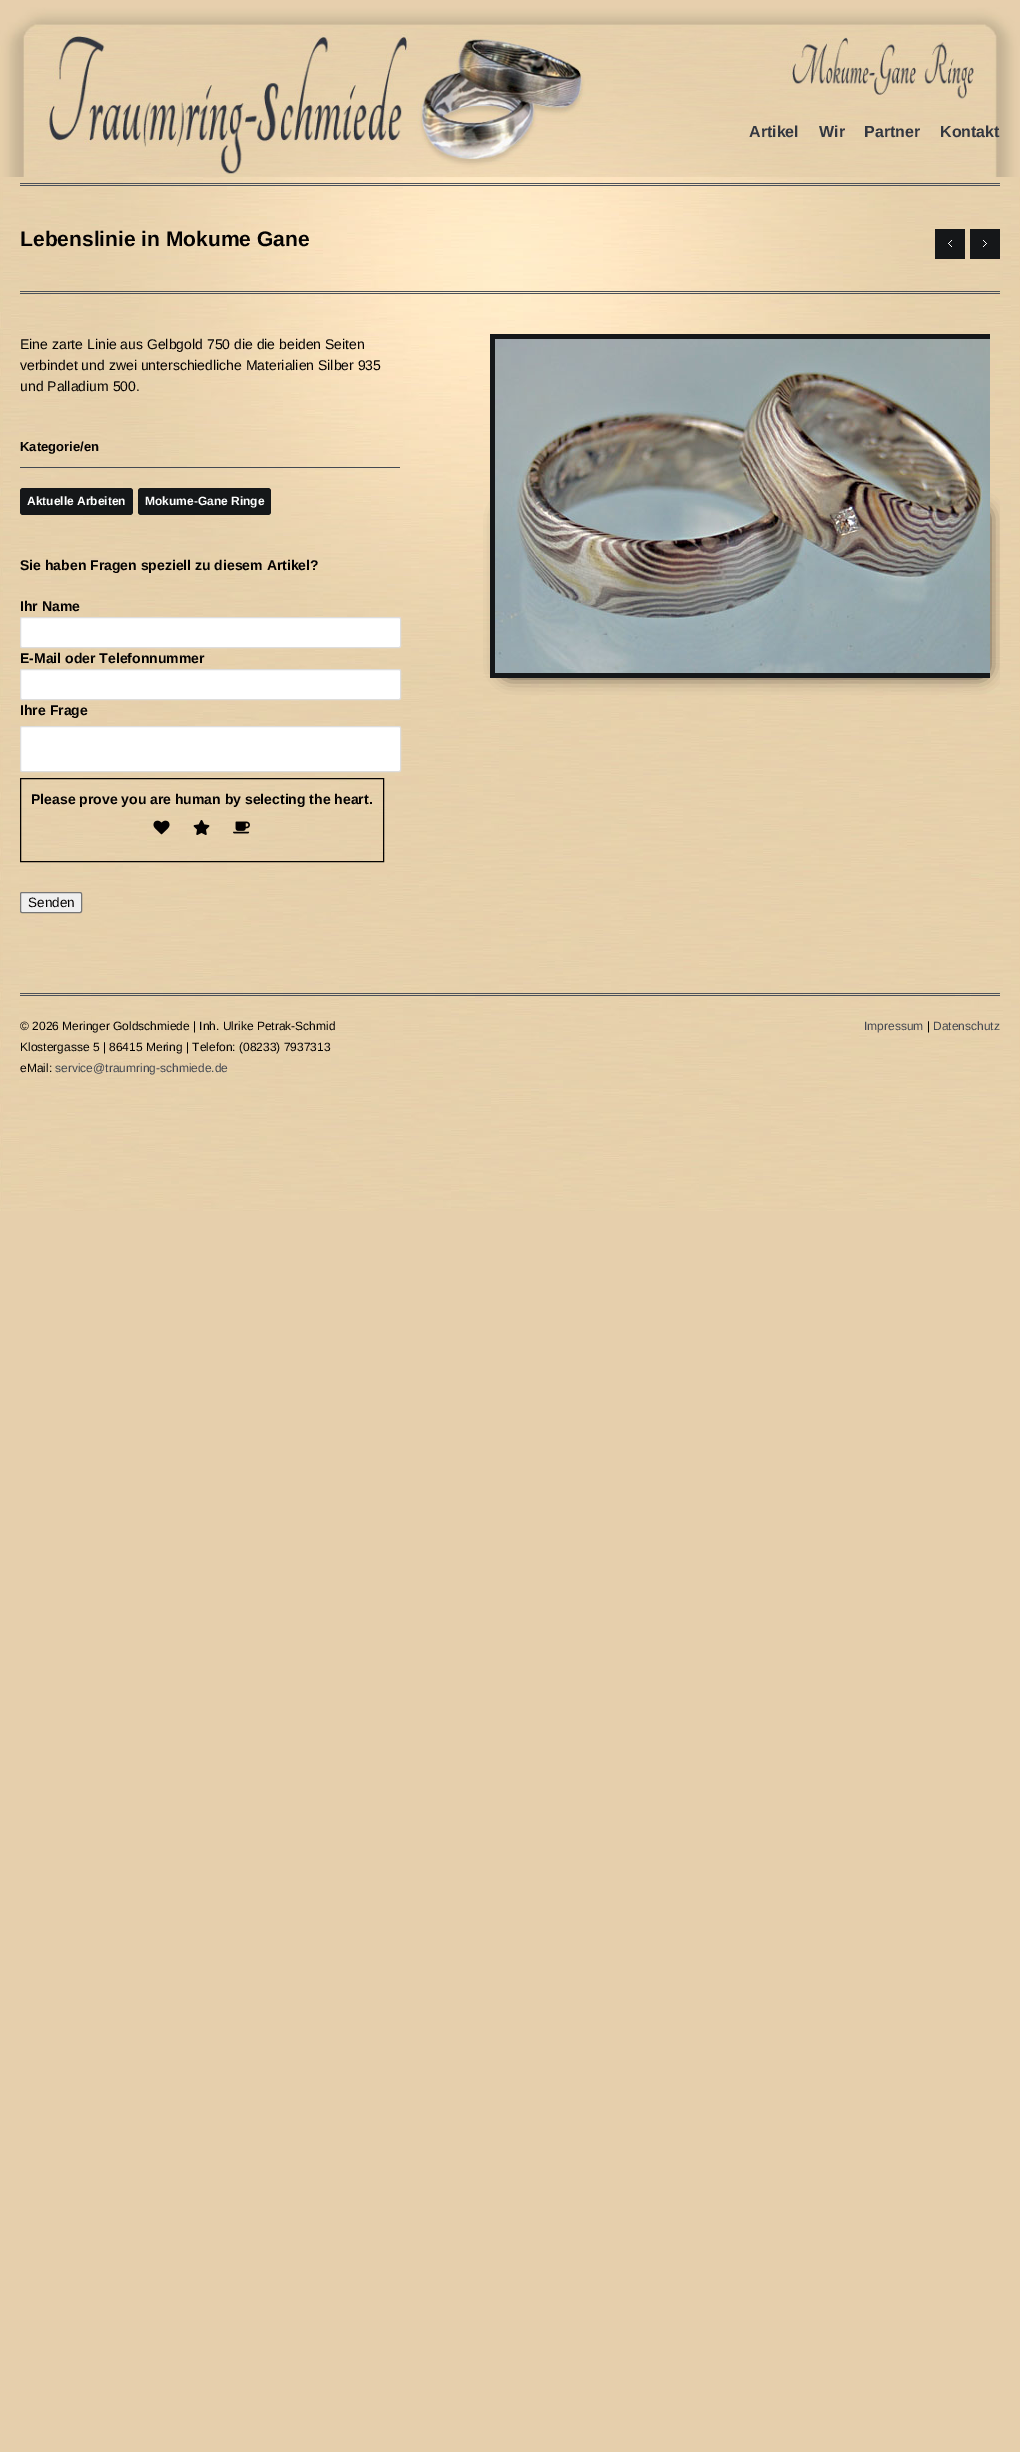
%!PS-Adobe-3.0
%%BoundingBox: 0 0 1020 2452
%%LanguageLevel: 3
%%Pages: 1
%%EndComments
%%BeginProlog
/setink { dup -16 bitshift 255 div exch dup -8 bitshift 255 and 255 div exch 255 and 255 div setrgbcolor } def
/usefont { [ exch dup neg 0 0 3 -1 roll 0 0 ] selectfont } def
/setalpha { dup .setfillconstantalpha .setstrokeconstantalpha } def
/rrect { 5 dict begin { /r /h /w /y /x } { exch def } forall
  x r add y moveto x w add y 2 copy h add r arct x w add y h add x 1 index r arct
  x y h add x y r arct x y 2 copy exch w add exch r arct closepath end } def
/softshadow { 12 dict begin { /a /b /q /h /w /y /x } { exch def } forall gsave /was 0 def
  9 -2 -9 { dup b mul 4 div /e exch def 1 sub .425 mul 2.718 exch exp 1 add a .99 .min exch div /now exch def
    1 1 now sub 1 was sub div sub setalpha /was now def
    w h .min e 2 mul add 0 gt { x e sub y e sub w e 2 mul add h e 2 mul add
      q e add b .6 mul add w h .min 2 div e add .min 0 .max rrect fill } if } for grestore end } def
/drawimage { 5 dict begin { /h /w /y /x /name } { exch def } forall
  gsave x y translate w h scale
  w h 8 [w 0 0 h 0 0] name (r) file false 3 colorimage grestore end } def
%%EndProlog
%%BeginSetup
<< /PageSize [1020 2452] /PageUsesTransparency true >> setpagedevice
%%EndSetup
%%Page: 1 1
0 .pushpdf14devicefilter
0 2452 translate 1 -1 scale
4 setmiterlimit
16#E6CFAC setink
0 0 1020 2452 rectfill
(img1.raw) 0 177 1020 1034 drawimage
(img2.raw) 0 0 1020 177 drawimage
16#4B515A setink
20 183 980 1 rectfill
20 185 980 1 rectfill
/LiberationSans-Bold 16 usefont
16#333740 setink
[
    [(Artikel) 749 137]
    [(Wir) 819 137]
    [(Partner) 864 137]
    [(Kontakt) 940 137]
] { aload pop moveto show } forall
16#4B515A setink
20 291 980 1 rectfill
20 293 980 1 rectfill
/LiberationSans-Bold 21 usefont
16#030101 setink
20 246 moveto (Lebenslinie in Mokume Gane) show
16#151719 setink
935 229 30 30 rectfill
(img3.raw) 948 240 4 7 drawimage
970 229 30 30 rectfill
(img4.raw) 983 240 4 7 drawimage
/LiberationSans-Regular 14 usefont
16#030101 setink
[
    [(Eine zarte Linie aus Gelbgold 750 die die beiden Seiten) 20 349]
    [(verbindet und zwei unterschiedliche Materialien Silber 935) 20 370]
    [(und Palladium 500.) 20 391]
] { aload pop moveto show } forall
16#434951 setink
20 467 380 1 rectfill
/LiberationSans-Bold 13 usefont
16#030101 setink
20 451 moveto (Kategorie/en) show
16#151719 setink
20 488 113 27 3 rrect fill
/LiberationSans-Bold 12 usefont
16#FFFFFF setink
27 505 moveto (Aktuelle Arbeiten) show
16#151719 setink
138 488 133 27 3 rrect fill
16#FFFFFF setink
145 505 moveto (Mokume-Gane Ringe) show
/LiberationSans-Bold 14 usefont
16#030101 setink
20 570 moveto (Sie haben Fragen speziell zu diesem Artikel?) show
20 611 moveto (Ihr Name) show
16#FFFFFF setink
20.5 617.5 380 30 1.5 rrect gsave fill grestore
16#DDDDDD setink
stroke
16#030101 setink
20 663 moveto (E-Mail oder Telefonnummer) show
16#FFFFFF setink
20.5 669.5 380 30 1.5 rrect gsave fill grestore
16#DDDDDD setink
stroke
16#030101 setink
20 715 moveto (Ihre Frage) show
16#FFFFFF setink
20.5 726.5 380 45 1.5 rrect gsave fill grestore
16#DDDDDD setink
stroke
16#030101 setink
20.5 778.5 363 83 rectstroke
31 804 moveto (Please prove you are human by selecting the heart.) show
(img5.raw) 153 820 17 15 drawimage
(img6.raw) 193 820 17 15 drawimage
(img7.raw) 233 821 17 13 drawimage
16#EFEFEF setink
20.5 892.5 61 20 1.5 rrect gsave fill grestore
16#767676 setink
stroke
/LiberationSans-Regular 13.5 usefont
16#030101 setink
28 907 moveto (Senden) show
gsave
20 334 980 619 rectclip
16#000000 setink
500 506 490 172 10 7.5 0.6 softshadow
grestore
16#151719 setink
490 334 500 344 rectfill
(img8.raw) 495 339 495 334 drawimage
16#4B515A setink
20 993 980 1 rectfill
20 995 980 1 rectfill
/LiberationSans-Regular 12 usefont
16#030101 setink
[
    [(© 2026 Meringer Goldschmiede | Inh. Ulrike Petrak-Schmid) 20 1030]
    [(Klostergasse 5 | 86415 Mering | Telefon: \(08233\) 7937313) 20 1051]
    [(eMail:) 20 1072]
] { aload pop moveto show } forall
16#434750 setink
55 1072 moveto (service@traumring-schmiede.de) show
864 1030 moveto (Impressum) show
16#030101 setink
927 1030 moveto (|) show
16#434750 setink
933 1030 moveto (Datenschutz) show
.poppdf14devicefilter showpage
%%EOF
